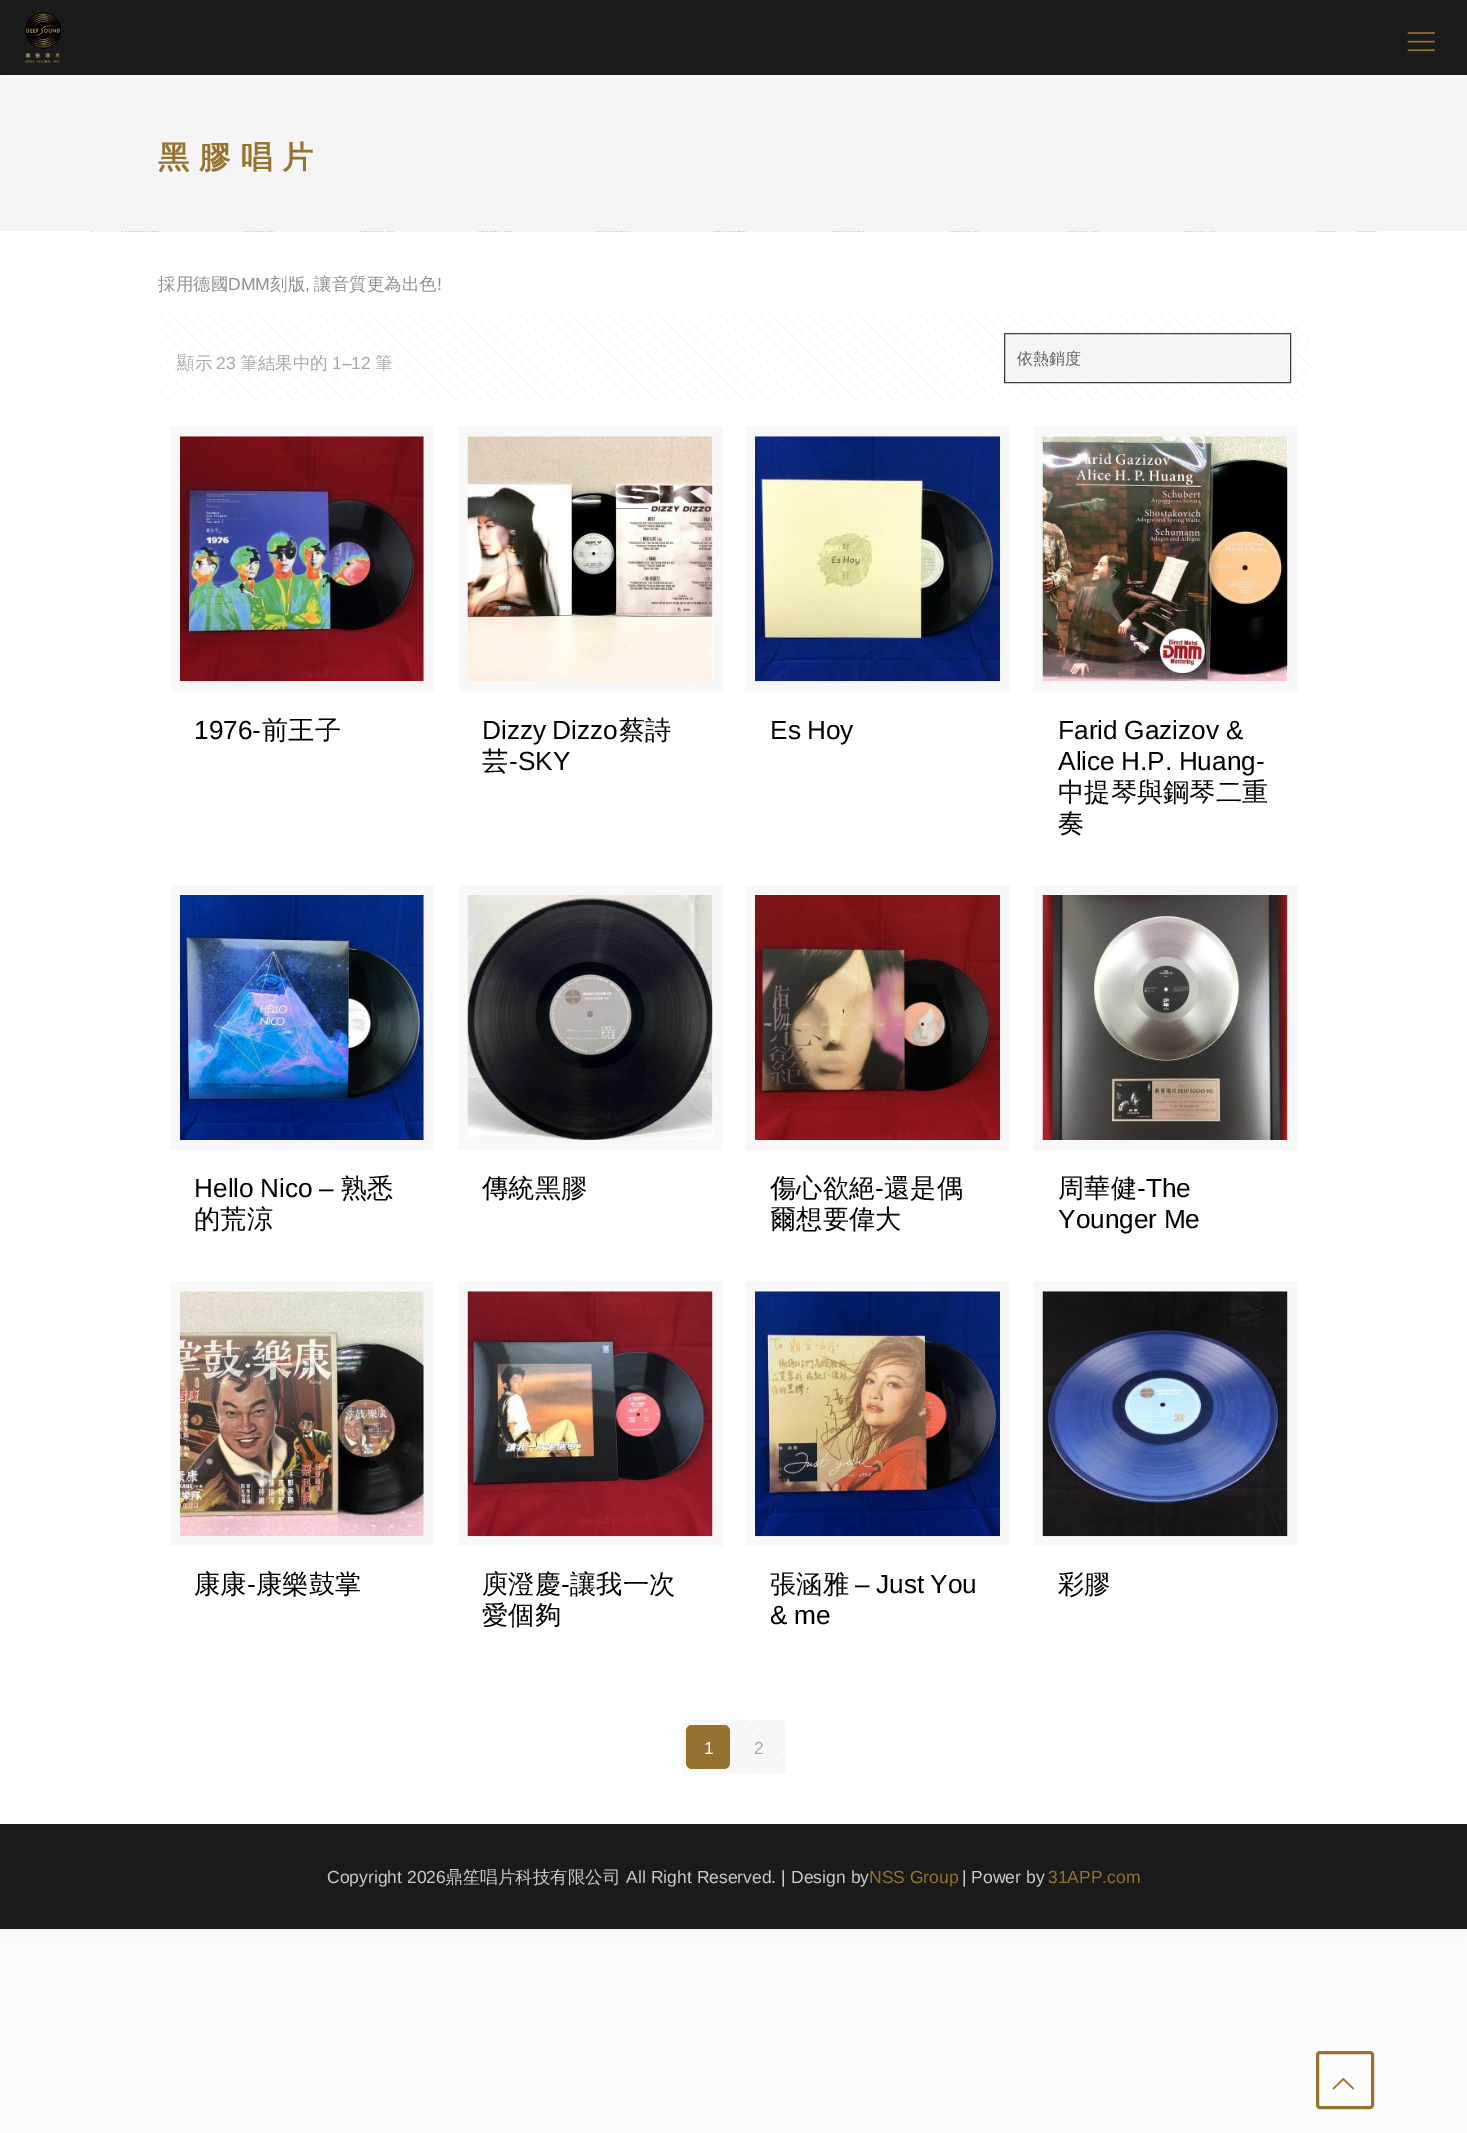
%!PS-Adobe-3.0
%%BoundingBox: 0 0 1467 2133
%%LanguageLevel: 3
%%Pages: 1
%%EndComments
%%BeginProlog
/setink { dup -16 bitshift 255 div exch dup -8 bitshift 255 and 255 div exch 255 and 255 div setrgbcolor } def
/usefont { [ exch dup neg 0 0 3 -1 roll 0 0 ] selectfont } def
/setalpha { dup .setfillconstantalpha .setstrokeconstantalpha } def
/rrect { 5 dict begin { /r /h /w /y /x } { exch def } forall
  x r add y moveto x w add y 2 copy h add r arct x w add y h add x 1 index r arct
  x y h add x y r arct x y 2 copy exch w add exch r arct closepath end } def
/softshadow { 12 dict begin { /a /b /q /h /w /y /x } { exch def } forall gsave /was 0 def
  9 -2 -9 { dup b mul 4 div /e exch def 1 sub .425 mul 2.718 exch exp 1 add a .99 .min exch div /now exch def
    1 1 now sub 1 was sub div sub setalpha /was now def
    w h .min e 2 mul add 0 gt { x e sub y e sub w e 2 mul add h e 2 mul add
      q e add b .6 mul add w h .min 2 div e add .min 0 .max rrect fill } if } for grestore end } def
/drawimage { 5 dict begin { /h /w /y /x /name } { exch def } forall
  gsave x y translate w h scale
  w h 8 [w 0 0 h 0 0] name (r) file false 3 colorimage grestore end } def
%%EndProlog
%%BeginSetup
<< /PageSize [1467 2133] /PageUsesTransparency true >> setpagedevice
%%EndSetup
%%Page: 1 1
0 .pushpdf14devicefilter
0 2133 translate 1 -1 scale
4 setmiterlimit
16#FCFCFC setink
0 0 1467 2133 rectfill
16#000000 setink
0 0 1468 1929 0 9.5 0.06 softshadow
16#1A1A1A setink
0 0 1467 75 rectfill
(img1.raw) 25 12 36 51 drawimage
(img2.raw) 1407 32 28 20 drawimage
16#FFFFFF setink
0 231 1467 1593 rectfill
(img3.raw) 90 231 1288 1 drawimage
16#F5F5F5 setink
3 75 1462 156 rectfill
/WenQuanYiZenHei-Bold 31.25 usefont
16#957230 setink
158 168 moveto 10 0 (黑膠唱片) ashow
/WenQuanYiZenHei-Medium 17.5 usefont
16#8D8F92 setink
158 290 moveto (採用德國) show
/LiberationSans-Regular 17.5 usefont
228 290 moveto (DMM) show
/WenQuanYiZenHei-Medium 17.5 usefont
270 290 moveto (刻版) show
314 290 moveto (讓音質更為出色) show
/LiberationSans-Regular 17.5 usefont
437 290 moveto (!) show
305 290 moveto (,) show
(img4.raw) 158 314 1152 87 drawimage
/WenQuanYiZenHei-Medium 17.5 usefont
16#A8A8A8 setink
177 369 moveto (顯示) show
/LiberationSans-Regular 17.5 usefont
216 369 moveto (23) show
/WenQuanYiZenHei-Medium 17.5 usefont
240 369 moveto (筆結果中的) show
/LiberationSans-Regular 17.5 usefont
332 369 moveto (1–12) show
/WenQuanYiZenHei-Medium 17.5 usefont
375 369 moveto (筆) show
16#F5F5F5 setink
1004.5 333.5 moveto 1290.5 333.5 lineto 1290.5 382.5 lineto 1004.5 382.5 lineto closepath gsave fill grestore
16#3E3E3E setink
stroke
/WenQuanYiZenHei-Medium 16 usefont
16#626262 setink
1017 364 moveto (依熱銷度) show
16#F8F8F8 setink
10 setlinewidth
175 431 254 255 rectstroke
(img5.raw) 180 436 244 246 drawimage
/LiberationSans-Regular 26.25 usefont
16#000000 setink
194 739 moveto (1976-) show
/WenQuanYiZenHei-Medium 26.25 usefont
262 739 moveto (前王子) show
16#F8F8F8 setink
463 431 255 255 rectstroke
(img6.raw) 467 436 246 245 drawimage
/LiberationSans-Regular 26.25 usefont
16#000000 setink
482 739 moveto -1 0 32 (Dizzy Dizzo) widthshow
/WenQuanYiZenHei-Medium 26.25 usefont
619 739 moveto (蔡詩) show
482 770 moveto (芸) show
/LiberationSans-Regular 26.25 usefont
509 770 moveto (-SKY) show
16#F8F8F8 setink
750 431 255 255 rectstroke
(img7.raw) 755 436 245 246 drawimage
16#000000 setink
770 739 moveto -1 0 32 (Es Hoy) widthshow
16#F8F8F8 setink
1038 431 255 255 rectstroke
(img8.raw) 1042 436 246 246 drawimage
16#000000 setink
1058 739 moveto -1 0 32 (Farid Gazizov) widthshow
1226 739 moveto (&) show
1058 770 moveto -1 0 32 (Alice H.P. Huang-) widthshow
/WenQuanYiZenHei-Medium 26.25 usefont
1058 801 moveto (中提琴與鋼琴二重) show
1058 832 moveto (奏) show
16#F8F8F8 setink
175 890 254 255 rectstroke
(img9.raw) 180 895 244 245 drawimage
/LiberationSans-Regular 26.25 usefont
16#000000 setink
194 1197 moveto -1 0 32 (Hello Nico –) widthshow
/WenQuanYiZenHei-Medium 26.25 usefont
341 1197 moveto (熟悉) show
194 1228 moveto (的荒涼) show
16#F8F8F8 setink
463 890 255 255 rectstroke
(img10.raw) 467 895 246 245 drawimage
16#000000 setink
482 1197 moveto (傳統黑膠) show
16#F8F8F8 setink
750 890 255 255 rectstroke
(img11.raw) 755 895 245 245 drawimage
16#000000 setink
770 1197 moveto (傷心欲絕) show
/LiberationSans-Regular 26.25 usefont
875 1197 moveto (-) show
/WenQuanYiZenHei-Medium 26.25 usefont
884 1197 moveto (還是偶) show
770 1228 moveto (爾想要偉大) show
16#F8F8F8 setink
1038 890 255 255 rectstroke
(img12.raw) 1042 895 246 245 drawimage
16#000000 setink
1058 1197 moveto (周華健) show
/LiberationSans-Regular 26.25 usefont
1137 1197 moveto (-The) show
1058 1228 moveto -1 0 32 (Younger Me) widthshow
16#F8F8F8 setink
175 1286 254 255 rectstroke
(img13.raw) 180 1291 244 245 drawimage
/WenQuanYiZenHei-Medium 26.25 usefont
16#000000 setink
194 1593 moveto (康康) show
/LiberationSans-Regular 26.25 usefont
247 1593 moveto (-) show
/WenQuanYiZenHei-Medium 26.25 usefont
256 1593 moveto (康樂鼓掌) show
16#F8F8F8 setink
463 1286 255 255 rectstroke
(img14.raw) 467 1291 246 246 drawimage
16#000000 setink
482 1593 moveto (庾澄慶) show
/LiberationSans-Regular 26.25 usefont
561 1593 moveto (-) show
/WenQuanYiZenHei-Medium 26.25 usefont
570 1593 moveto (讓我一次) show
482 1624 moveto (愛個夠) show
16#F8F8F8 setink
750 1286 255 255 rectstroke
(img15.raw) 755 1291 245 246 drawimage
16#000000 setink
770 1593 moveto (張涵雅) show
/LiberationSans-Regular 26.25 usefont
855 1593 moveto -1 0 32 (– Just You) widthshow
770 1624 moveto -1 0 32 (& me) widthshow
16#F8F8F8 setink
1038 1286 255 255 rectstroke
(img16.raw) 1042 1291 246 246 drawimage
/WenQuanYiZenHei-Medium 26.25 usefont
16#000000 setink
1058 1593 moveto (彩膠) show
16#F8F8F8 setink
681 1720 105 54 6 rrect fill
(img17.raw) 684 1720 102 51 drawimage
16#957230 setink
686 1725 44 44 6 rrect fill
/LiberationSans-Regular 17.5 usefont
16#FFFFFF setink
704 1754 moveto (1) show
16#A8A8A8 setink
754 1754 moveto (2) show
16#1A1A1A setink
0 1824 1467 105 rectfill
16#CCCCCC setink
327 1883 moveto (Copyright) show
407 1883 moveto (2026) show
/WenQuanYiZenHei-Medium 17.5 usefont
445 1883 moveto (鼎笙唱片科技有限公司) show
/LiberationSans-Regular 17.5 usefont
626 1883 moveto 0.25 0 32 (All Right Reserved. | Design by) widthshow
16#957230 setink
869 1883 moveto (NSS Group) show
16#CCCCCC setink
962 1883 moveto (| Power by) show
16#957230 setink
1048 1883 moveto (31APP.com) show
3 setlinewidth
1317.5 2052.5 55 55 2.5 rrect stroke
(img18.raw) 1332 2078 22 12 drawimage
.poppdf14devicefilter showpage
%%EOF
